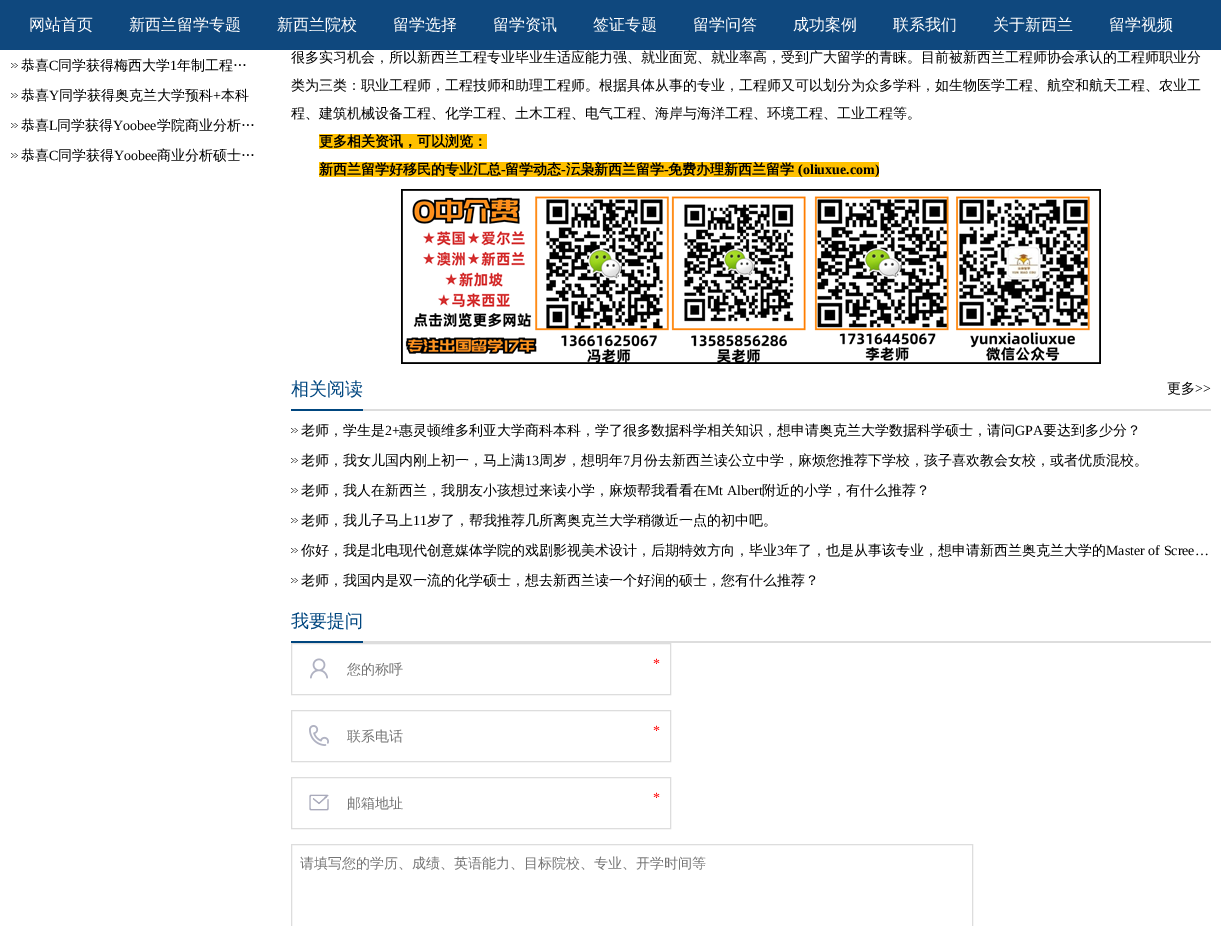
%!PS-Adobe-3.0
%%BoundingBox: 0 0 1221 926
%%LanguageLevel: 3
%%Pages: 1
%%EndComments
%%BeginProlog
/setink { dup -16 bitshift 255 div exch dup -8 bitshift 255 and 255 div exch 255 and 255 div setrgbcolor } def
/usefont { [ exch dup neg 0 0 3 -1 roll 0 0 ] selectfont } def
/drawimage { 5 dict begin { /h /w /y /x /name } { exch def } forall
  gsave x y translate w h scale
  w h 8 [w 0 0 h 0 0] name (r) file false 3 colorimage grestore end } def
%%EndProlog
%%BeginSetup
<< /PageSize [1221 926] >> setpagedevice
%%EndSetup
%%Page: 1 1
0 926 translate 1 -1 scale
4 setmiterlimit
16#FFFFFF setink
0 0 1221 926 rectfill
16#0F487E setink
0 0 1221 50 rectfill
/WenQuanYiZenHei-Medium 16 usefont
16#FFFFFF setink
[
    [(网站首页) 29 30]
    [(新西兰留学专题) 129 30]
    [(新西兰院校) 277 30]
    [(留学选择) 393 30]
    [(留学资讯) 493 30]
    [(签证专题) 593 30]
    [(留学问答) 693 30]
    [(成功案例) 793 30]
    [(联系我们) 893 30]
    [(关于新西兰) 993 30]
    [(留学视频) 1109 30]
] { aload pop moveto show } forall
(img1.raw) 11 63 7 5 drawimage
/WenQuanYiZenHei-Medium 14 usefont
16#000000 setink
21 70 moveto (恭喜) show
/LiberationSerif-Regular 14 usefont
49 70 moveto (C) show
/WenQuanYiZenHei-Medium 14 usefont
58 70 moveto (同学获得梅西大学) show
/LiberationSerif-Regular 14 usefont
170 70 moveto (1) show
/WenQuanYiZenHei-Medium 14 usefont
177 70 moveto (年制工程…) show
(img1.raw) 11 93 7 5 drawimage
21 100 moveto (恭喜) show
/LiberationSerif-Regular 14 usefont
49 100 moveto (Y) show
/WenQuanYiZenHei-Medium 14 usefont
59 100 moveto (同学获得奥克兰大学预科) show
/LiberationSerif-Regular 14 usefont
213 100 moveto (+) show
/WenQuanYiZenHei-Medium 14 usefont
221 100 moveto (本科) show
(img1.raw) 11 123 7 5 drawimage
21 130 moveto (恭喜) show
/LiberationSerif-Regular 14 usefont
49 130 moveto (L) show
/WenQuanYiZenHei-Medium 14 usefont
57 130 moveto (同学获得) show
/LiberationSerif-Regular 14 usefont
113 130 moveto (Yoobee) show
/WenQuanYiZenHei-Medium 14 usefont
157 130 moveto (学院商业分析…) show
(img1.raw) 11 153 7 5 drawimage
21 160 moveto (恭喜) show
/LiberationSerif-Regular 14 usefont
49 160 moveto (C) show
/WenQuanYiZenHei-Medium 14 usefont
58 160 moveto (同学获得) show
/LiberationSerif-Regular 14 usefont
114 160 moveto (Yoobee) show
/WenQuanYiZenHei-Medium 14 usefont
[
    [(商业分析硕士…) 157 160]
    [(很多实习机会，所以新西兰工程专业毕业生适应能力强、就业面宽、就业率高，受到广大留学的青睐。目前被新西兰工程师协会承认的工程师职业分) 291 62]
    [(类为三类：职业工程师，工程技师和助理工程师。根据具体从事的专业，工程师又可以划分为众多学科，如生物医学工程、航空和航天工程、农业工) 291 90]
    [(程、建筑机械设备工程、化学工程、土木工程、电气工程、海岸与海洋工程、环境工程、工业工程等。) 291 118]
] { aload pop moveto show } forall
16#FFC000 setink
319 134 168 15 rectfill
/WenQuanYiZenHei-Bold 14 usefont
16#000000 setink
319 146 moveto (更多相关资讯，可以浏览：) show
16#FFC000 setink
319 162 560 15 rectfill
16#000000 setink
319 174 moveto (新西兰留学好移民的专业汇总) show
/LiberationSerif-Bold 14 usefont
501 174 moveto (-) show
/WenQuanYiZenHei-Bold 14 usefont
505 174 moveto (留学动态) show
/LiberationSerif-Bold 14 usefont
561 174 moveto (-) show
/WenQuanYiZenHei-Bold 14 usefont
566 174 moveto (沄枭新西兰留学) show
/LiberationSerif-Bold 14 usefont
664 174 moveto (-) show
/WenQuanYiZenHei-Bold 14 usefont
668 174 moveto (免费办理新西兰留学) show
/LiberationSerif-Bold 14 usefont
798 174 moveto (\(oliuxue.com\)) show
(img2.raw) 401 189 700 175 drawimage
16#DDDDDD setink
363 409 848 2 rectfill
16#00467F setink
291 409 72 2 rectfill
/WenQuanYiZenHei-Medium 18 usefont
291 395 moveto (相关阅读) show
/WenQuanYiZenHei-Medium 14 usefont
16#000000 setink
1167 393 moveto (更多) show
/LiberationSerif-Regular 14 usefont
1195 393 moveto (>>) show
(img3.raw) 291 428 7 5 drawimage
/WenQuanYiZenHei-Medium 14 usefont
301 435 moveto (老师，学生是) show
/LiberationSerif-Regular 14 usefont
385 435 moveto (2+) show
/WenQuanYiZenHei-Medium 14 usefont
399 435 moveto (惠灵顿维多利亚大学商科本科，学了很多数据科学相关知识，想申请奥克兰大学数据科学硕士，请问) show
/LiberationSerif-Regular 14 usefont
1015 435 moveto (GPA) show
/WenQuanYiZenHei-Medium 14 usefont
1043 435 moveto (要达到多少分？) show
(img3.raw) 291 458 7 5 drawimage
301 465 moveto (老师，我女儿国内刚上初一，马上满) show
/LiberationSerif-Regular 14 usefont
525 465 moveto (13) show
/WenQuanYiZenHei-Medium 14 usefont
539 465 moveto (周岁，想明年) show
/LiberationSerif-Regular 14 usefont
623 465 moveto (7) show
/WenQuanYiZenHei-Medium 14 usefont
630 465 moveto (月份去新西兰读公立中学，麻烦您推荐下学校，孩子喜欢教会女校，或者优质混校。) show
(img3.raw) 291 488 7 5 drawimage
301 495 moveto (老师，我人在新西兰，我朋友小孩想过来读小学，麻烦帮我看看在) show
/LiberationSerif-Regular 14 usefont
707 495 moveto (Mt Albert) show
/WenQuanYiZenHei-Medium 14 usefont
762 495 moveto (附近的小学，有什么推荐？) show
(img3.raw) 291 518 7 5 drawimage
301 525 moveto (老师，我儿子马上) show
/LiberationSerif-Regular 14 usefont
413 525 moveto (11) show
/WenQuanYiZenHei-Medium 14 usefont
427 525 moveto (岁了，帮我推荐几所离奥克兰大学稍微近一点的初中吧。) show
(img3.raw) 291 548 7 5 drawimage
301 555 moveto (你好，我是北电现代创意媒体学院的戏剧影视美术设计，后期特效方向，毕业) show
/LiberationSerif-Regular 14 usefont
777 555 moveto (3) show
/WenQuanYiZenHei-Medium 14 usefont
784 555 moveto (年了，也是从事该专业，想申请新西兰奥克兰大学的) show
/LiberationSerif-Regular 14 usefont
1106 555 moveto (Master of Scree…) show
(img3.raw) 291 578 7 5 drawimage
/WenQuanYiZenHei-Medium 14 usefont
301 585 moveto (老师，我国内是双一流的化学硕士，想去新西兰读一个好润的硕士，您有什么推荐？) show
16#DDDDDD setink
363 641 848 2 rectfill
16#00467F setink
291 641 72 2 rectfill
/WenQuanYiZenHei-Medium 18 usefont
291 627 moveto (我要提问) show
(img4.raw) 310 658 18 21 drawimage
16#DDDDDD setink
291.5 643.5 379 51 rectstroke
/LiberationSerif-Regular 14 usefont
16#FF0000 setink
653 668 moveto (*) show
/WenQuanYiZenHei-Medium 14 usefont
16#757575 setink
347 674 moveto (您的称呼) show
(img5.raw) 309 725 20 21 drawimage
16#DDDDDD setink
291.5 710.5 379 51 rectstroke
/LiberationSerif-Regular 14 usefont
16#FF0000 setink
653 735 moveto (*) show
gsave
347 728 323 18 rectclip
/WenQuanYiZenHei-Medium 14 usefont
16#757575 setink
347 741 moveto (联系电话) show
grestore
(img6.raw) 309 794 20 17 drawimage
16#DDDDDD setink
291.5 777.5 379 51 rectstroke
16#FF0000 setink
653 802 moveto (*) show
/WenQuanYiZenHei-Medium 14 usefont
16#757575 setink
347 808 moveto (邮箱地址) show
16#DDDDDD setink
291.5 844.5 681 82 rectstroke
16#757575 setink
300 868 moveto (请填写您的学历、成绩、英语能力、目标院校、专业、开学时间等) show
showpage
%%EOF
